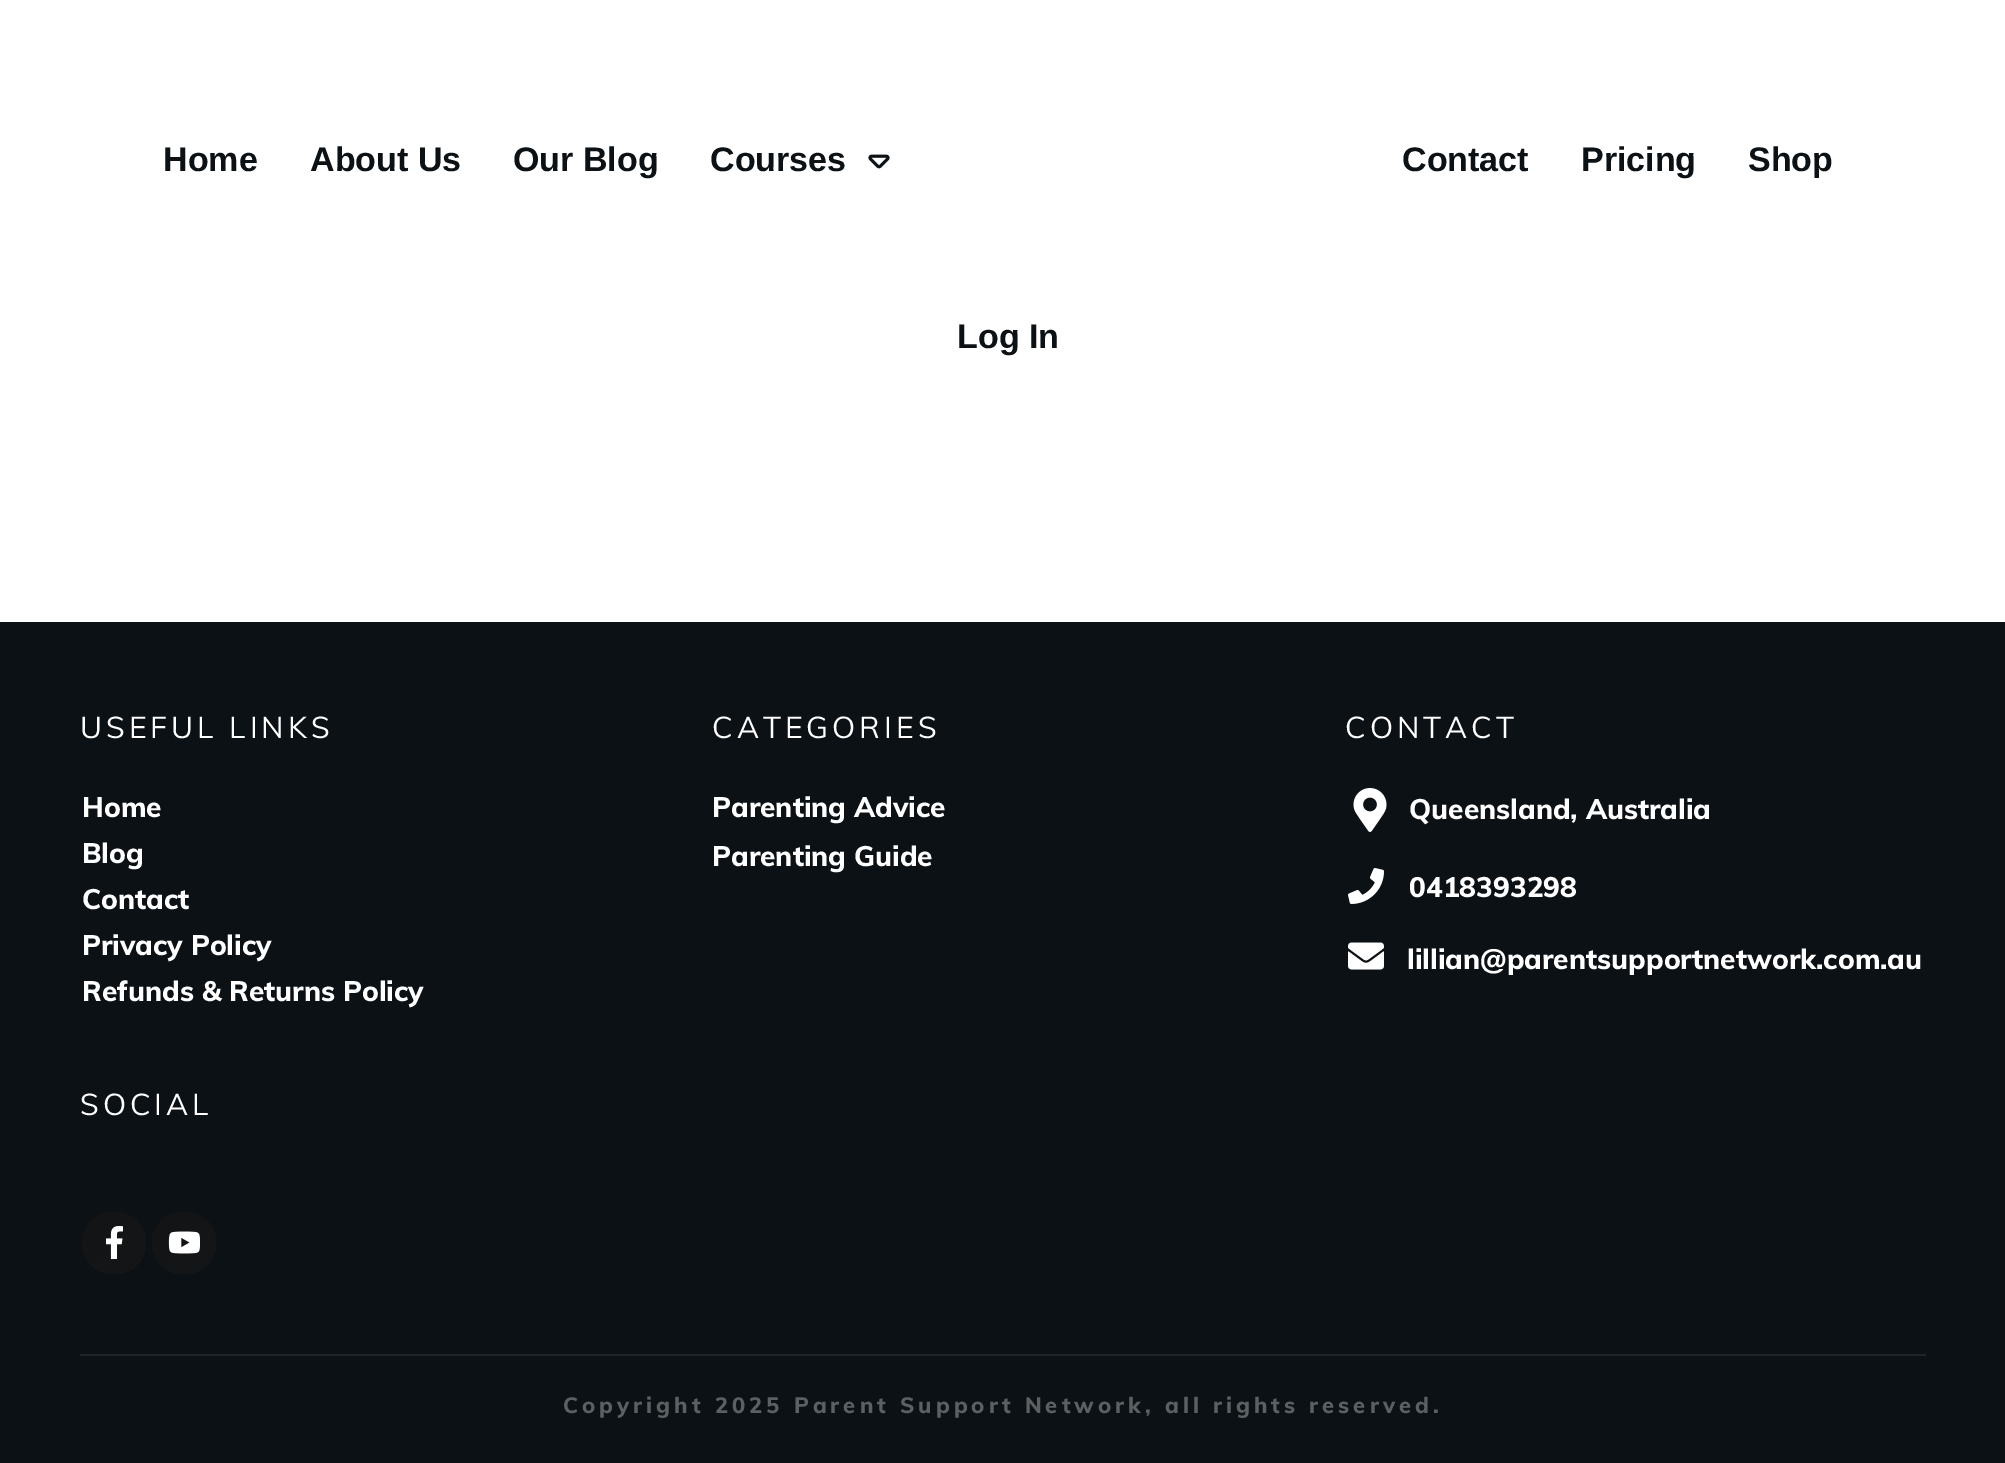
%!PS-Adobe-3.0
%%BoundingBox: 0 0 2005 1463
%%LanguageLevel: 3
%%Pages: 1
%%EndComments
%%BeginProlog
/setink { dup -16 bitshift 255 div exch dup -8 bitshift 255 and 255 div exch 255 and 255 div setrgbcolor } def
/usefont { [ exch dup neg 0 0 3 -1 roll 0 0 ] selectfont } def
/rrect { 5 dict begin { /r /h /w /y /x } { exch def } forall
  x r add y moveto x w add y 2 copy h add r arct x w add y h add x 1 index r arct
  x y h add x y r arct x y 2 copy exch w add exch r arct closepath end } def
/drawimage { 5 dict begin { /h /w /y /x /name } { exch def } forall
  gsave x y translate w h scale
  w h 8 [w 0 0 h 0 0] name (r) file false 3 colorimage grestore end } def
%%EndProlog
%%BeginSetup
<< /PageSize [2005 1463] >> setpagedevice
%%EndSetup
%%Page: 1 1
0 1463 translate 1 -1 scale
4 setmiterlimit
16#FFFFFF setink
0 0 2005 1463 rectfill
/LiberationSans-Bold 34 usefont
16#0C1115 setink
[
    [(Home) 163 171]
    [(About Us) 310 171]
    [(Our Blog) 513 171]
    [(Courses) 710 171]
] { aload pop moveto show } forall
(img1.raw) 868 154 22 15 drawimage
gsave
1402 128 126 68 rectclip
1402 171 moveto (Contact) show
grestore
[
    [(Pricing) 1581 171]
    [(Shop) 1748 171]
    [(Log In) 957 348]
] { aload pop moveto show } forall
0 622 2005 841 rectfill
16#1F2428 setink
80 1354 1846 2 rectfill
/Muli-Regular 30 usefont
16#FFFFFF setink
80 738 moveto 4 0 (USEFUL LINKS) ashow
/Muli-ExtraBold 28 usefont
[
    [(Home) 82 817]
    [(Blog) 82 863]
    [(Contact) 82 909]
    [(Privacy Policy) 82 955]
    [(Refunds & Returns Policy) 82 1001]
] { aload pop moveto show } forall
/Muli-Regular 30 usefont
712 738 moveto 4 0 (CATEGORIES) ashow
/Muli-ExtraBold 28 usefont
712 817 moveto (Parenting Advice) show
712 866 moveto (Parenting Guide) show
/Muli-Regular 30 usefont
1345 738 moveto 4 0 (CONTACT) ashow
(img2.raw) 1353 788 34 44 drawimage
/Muli-ExtraBold 28 usefont
1409 819 moveto (Queensland, Australia) show
(img3.raw) 1348 868 36 36 drawimage
1409 897 moveto (0418393298) show
(img4.raw) 1348 942 36 28 drawimage
1407 969 moveto (lillian@parentsupportnetwork.com.au) show
/Muli-Regular 30 usefont
80 1115 moveto 4 0 (SOCIAL) ashow
gsave 82 1212 64 62 31 rrect clip newpath
<< /ShadingType 2 /ColorSpace /DeviceRGB /Coords [83 1211 145 1275] /Extend [true true] /Function << /FunctionType 3 /Domain [0 1] /Functions [<< /FunctionType 2 /Domain [0 1] /C0 [0.071 0.078 0.086] /C1 [0.071 0.078 0.086] /N 1 >> << /FunctionType 2 /Domain [0 1] /C0 [0.078 0.082 0.086] /C1 [0.078 0.082 0.086] /N 1 >>] /Bounds [0.5] /Encode [0 1 0 1] >> >> shfill grestore
(img5.raw) 106 1226 17 33 drawimage
gsave 152 1212 64 62 31 rrect clip newpath
<< /ShadingType 2 /ColorSpace /DeviceRGB /Coords [153 1211 215 1275] /Extend [true true] /Function << /FunctionType 3 /Domain [0 1] /Functions [<< /FunctionType 2 /Domain [0 1] /C0 [0.071 0.078 0.086] /C1 [0.071 0.078 0.086] /N 1 >> << /FunctionType 2 /Domain [0 1] /C0 [0.078 0.082 0.086] /C1 [0.078 0.082 0.086] /N 1 >>] /Bounds [0.5] /Encode [0 1 0 1] >> >> shfill grestore
(img6.raw) 168 1231 32 23 drawimage
/Muli-ExtraBold 22 usefont
16#5C6062 setink
563 1413 moveto 4 0 (Copyright 2025 Parent Support Network, all rights reserved.) ashow
showpage
%%EOF
